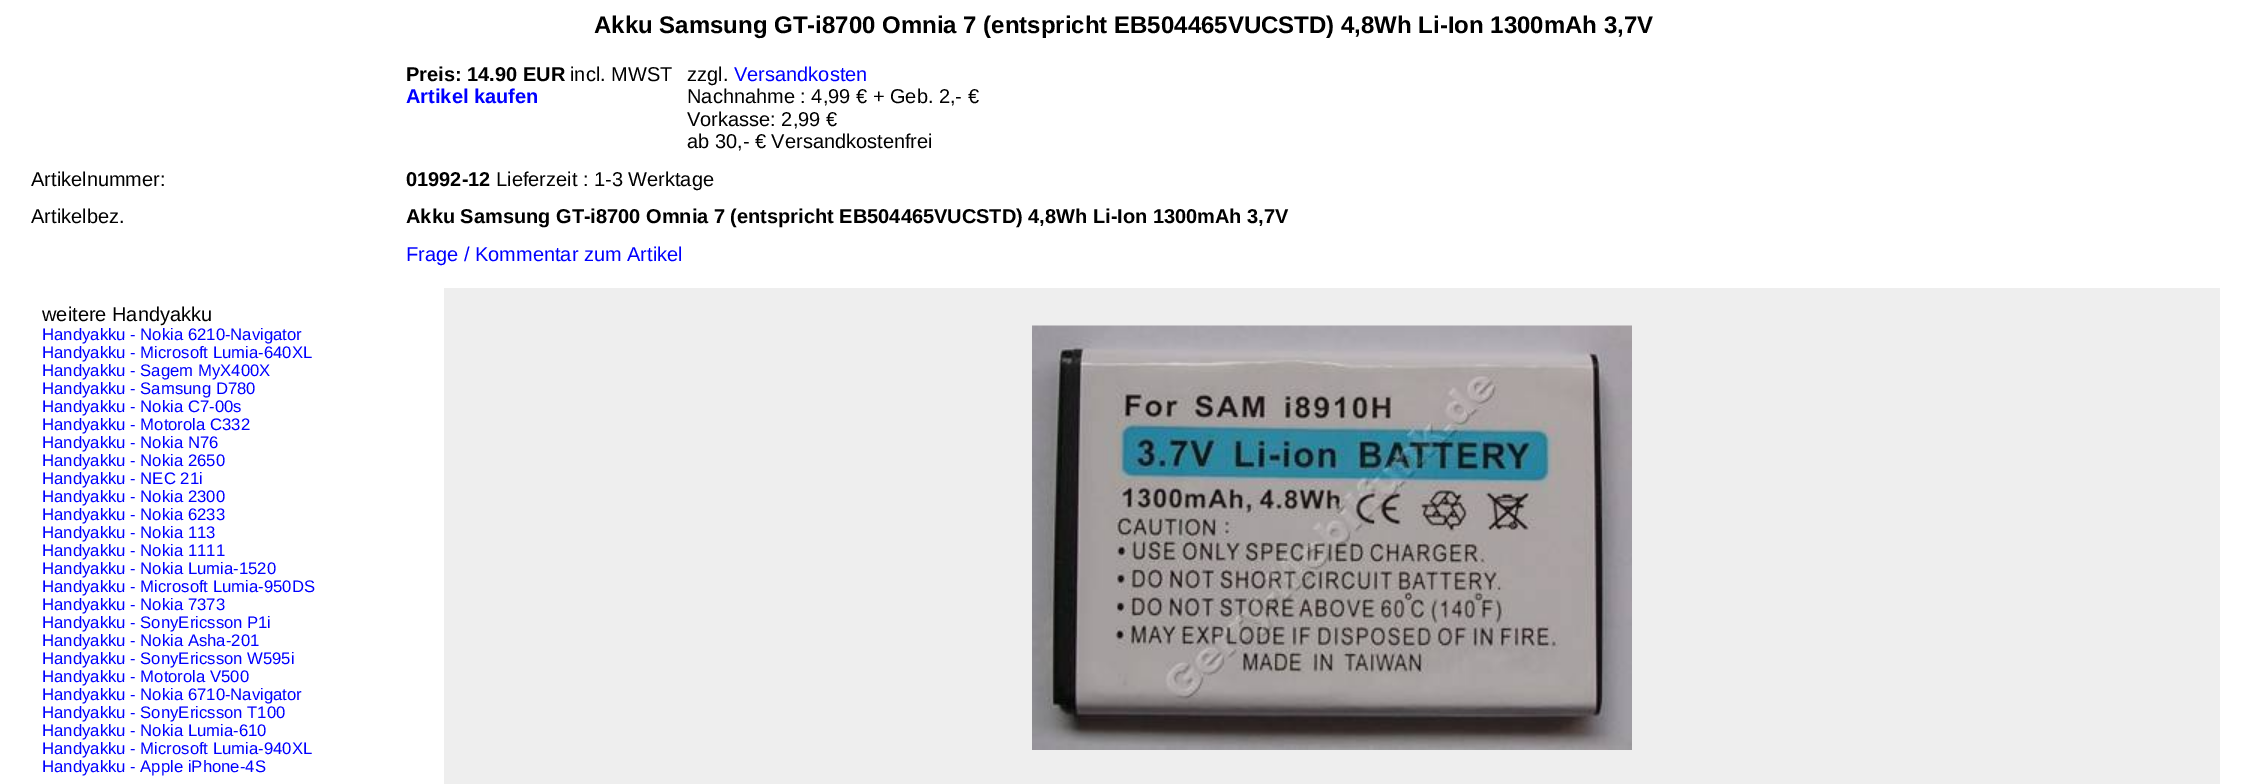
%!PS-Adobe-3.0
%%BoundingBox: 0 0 2247 784
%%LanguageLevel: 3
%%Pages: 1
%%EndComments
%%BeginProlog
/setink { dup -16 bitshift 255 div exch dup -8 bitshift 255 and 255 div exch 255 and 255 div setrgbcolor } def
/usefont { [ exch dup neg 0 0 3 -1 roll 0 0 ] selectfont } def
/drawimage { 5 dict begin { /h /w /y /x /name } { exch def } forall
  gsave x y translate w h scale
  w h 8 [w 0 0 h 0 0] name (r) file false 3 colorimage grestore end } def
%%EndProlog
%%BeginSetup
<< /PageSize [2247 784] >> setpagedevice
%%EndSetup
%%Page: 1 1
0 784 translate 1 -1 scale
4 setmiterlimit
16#FFFFFF setink
0 0 2247 784 rectfill
/LiberationSans-Bold 24 usefont
16#000000 setink
594 33 moveto (Akku Samsung GT-i8700 Omnia 7 \(entspricht EB504465VUCSTD\) 4,8Wh Li-Ion 1300mAh 3,7V) show
/LiberationSans-Bold 20 usefont
406 81 moveto (Preis: 14.90 EUR) show
/LiberationSans-Regular 20 usefont
570 81 moveto (incl. MWST) show
/LiberationSans-Bold 20 usefont
16#0000FF setink
406 103 moveto (Artikel kaufen) show
/LiberationSans-Regular 20 usefont
16#000000 setink
687 81 moveto (zzgl.) show
16#0000FF setink
734 81 moveto (Versandkosten) show
16#000000 setink
[
    [(Nachnahme : 4,99 € + Geb. 2,- €) 687 103]
    [(Vorkasse: 2,99 €) 687 126]
    [(ab 30,- € Versandkostenfrei) 687 148]
    [(Artikelnummer:) 31 186]
] { aload pop moveto show } forall
/LiberationSans-Bold 20 usefont
406 186 moveto (01992-12) show
/LiberationSans-Regular 20 usefont
496 186 moveto (Lieferzeit : 1-3 Werktage) show
31 223 moveto (Artikelbez.) show
/LiberationSans-Bold 20 usefont
406 223 moveto (Akku Samsung GT-i8700 Omnia 7 \(entspricht EB504465VUCSTD\) 4,8Wh Li-Ion 1300mAh 3,7V) show
/LiberationSans-Regular 20 usefont
16#0000FF setink
406 261 moveto (Frage / Kommentar zum Artikel) show
16#000000 setink
42 321 moveto (weitere Handyakku) show
/LiberationSans-Regular 16.7 usefont
16#0000FF setink
[
    [(Handyakku - Nokia 6210-Navigator) 42 340]
    [(Handyakku - Microsoft Lumia-640XL) 42 358]
    [(Handyakku - Sagem MyX400X) 42 376]
    [(Handyakku - Samsung D780) 42 394]
    [(Handyakku - Nokia C7-00s) 42 412]
    [(Handyakku - Motorola C332) 42 430]
    [(Handyakku - Nokia N76) 42 448]
    [(Handyakku - Nokia 2650) 42 466]
    [(Handyakku - NEC 21i) 42 484]
    [(Handyakku - Nokia 2300) 42 502]
    [(Handyakku - Nokia 6233) 42 520]
    [(Handyakku - Nokia 113) 42 538]
    [(Handyakku - Nokia 1111) 42 556]
    [(Handyakku - Nokia Lumia-1520) 42 574]
    [(Handyakku - Microsoft Lumia-950DS) 42 592]
    [(Handyakku - Nokia 7373) 42 610]
    [(Handyakku - SonyEricsson P1i) 42 628]
    [(Handyakku - Nokia Asha-201) 42 646]
    [(Handyakku - SonyEricsson W595i) 42 664]
    [(Handyakku - Motorola V500) 42 682]
    [(Handyakku - Nokia 6710-Navigator) 42 700]
    [(Handyakku - SonyEricsson T100) 42 718]
    [(Handyakku - Nokia Lumia-610) 42 736]
    [(Handyakku - Microsoft Lumia-940XL) 42 754]
    [(Handyakku - Apple iPhone-4S) 42 772]
] { aload pop moveto show } forall
16#EEEEEE setink
444 288 1776 496 rectfill
(img1.raw) 1032 325 600 425 drawimage
showpage
%%EOF
